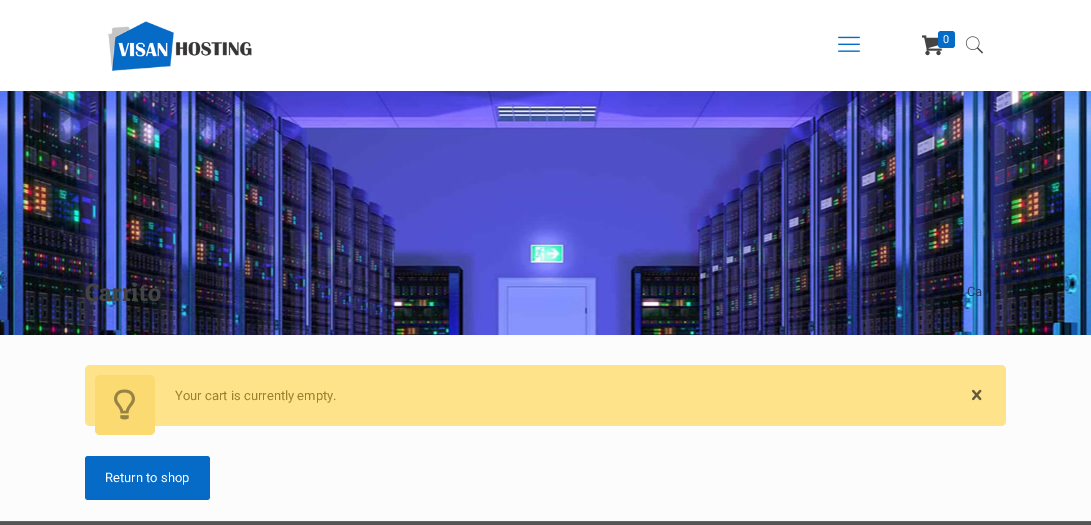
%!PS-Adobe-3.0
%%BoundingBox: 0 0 1091 525
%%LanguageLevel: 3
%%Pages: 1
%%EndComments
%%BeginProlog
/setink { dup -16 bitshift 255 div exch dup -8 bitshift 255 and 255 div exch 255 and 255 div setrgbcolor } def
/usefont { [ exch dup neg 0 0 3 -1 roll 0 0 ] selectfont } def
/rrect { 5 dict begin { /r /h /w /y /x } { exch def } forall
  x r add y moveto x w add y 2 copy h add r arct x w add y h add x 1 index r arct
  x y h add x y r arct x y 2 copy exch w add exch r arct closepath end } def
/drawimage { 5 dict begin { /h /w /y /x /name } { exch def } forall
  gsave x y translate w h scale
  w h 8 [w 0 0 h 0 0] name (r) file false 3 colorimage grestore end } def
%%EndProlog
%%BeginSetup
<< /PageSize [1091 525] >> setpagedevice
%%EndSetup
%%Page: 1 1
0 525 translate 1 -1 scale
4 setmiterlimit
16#FCFCFC setink
0 0 1091 525 rectfill
(img1.raw) 0 91 1091 244 drawimage
16#FFFFFF setink
0 0 1091 91 rectfill
(img2.raw) 108 21 144 50 drawimage
(img3.raw) 838 36 22 16 drawimage
(img4.raw) 922 35 20 21 drawimage
16#066BC6 setink
938 31 17 17 3 rrect fill
/Roboto-Regular 11 usefont
16#FFFFFF setink
943 43 moveto (0) show
(img5.raw) 965 36 19 18 drawimage
/PatuaOne-Regular 25 usefont
16#444444 setink
85 301 moveto (Carrito) show
/Roboto-Regular 13 usefont
16#243B65 setink
967 296 moveto (Ca) show
16#FFE38B setink
85 365 921 61 5 rrect fill
16#FBDA72 setink
95 375 60 60 5 rrect fill
(img6.raw) 114 389 21 31 drawimage
16#9B812E setink
175 400 moveto (Your cart is currently empty.) show
(img7.raw) 972 389 10 12 drawimage
16#066BC6 setink
85 456 125 44 3 rrect fill
16#FFFFFF setink
105 482 moveto (Return to shop) show
16#545454 setink
0 522 1091 3 rectfill
16#656565 setink
0 521 1091 1 rectfill
showpage
%%EOF
